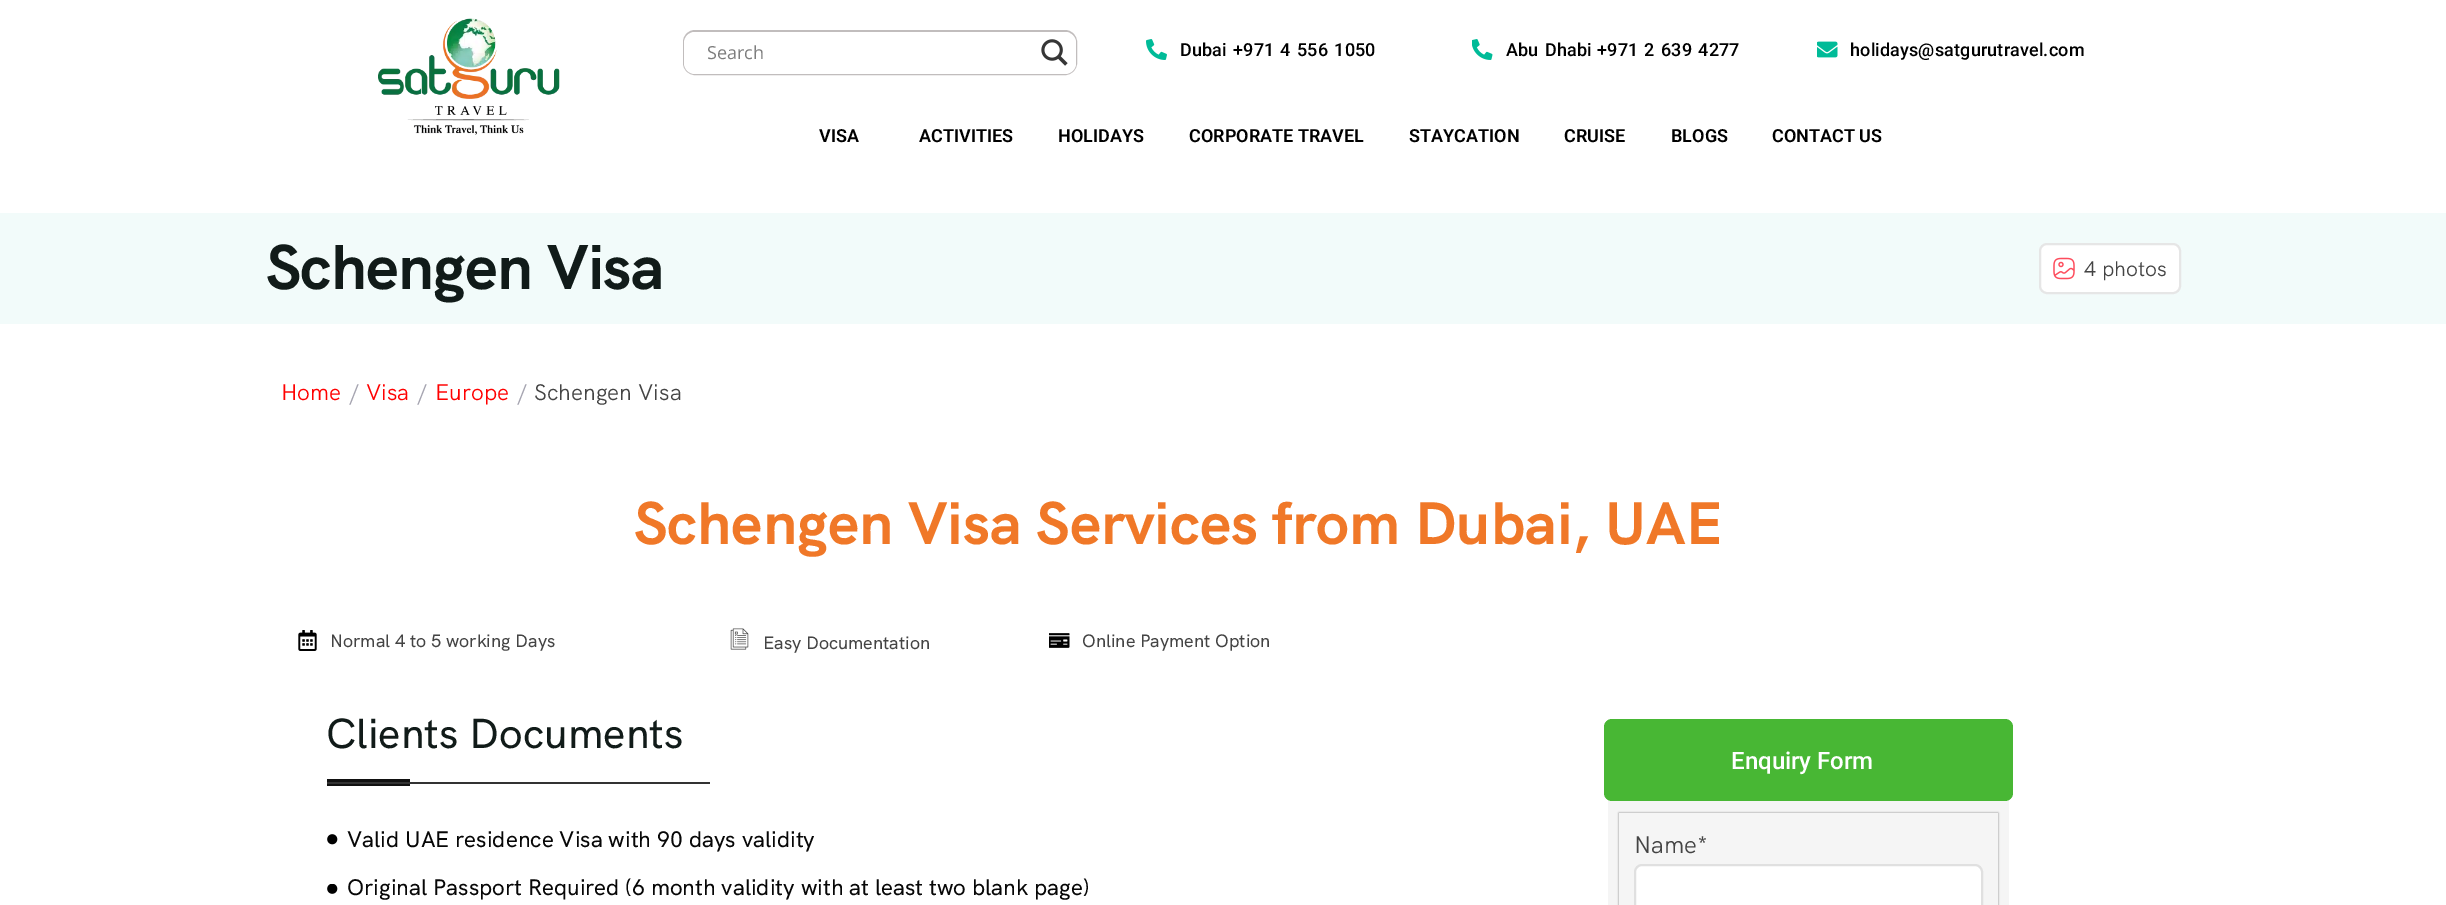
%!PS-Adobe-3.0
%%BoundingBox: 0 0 2446 905
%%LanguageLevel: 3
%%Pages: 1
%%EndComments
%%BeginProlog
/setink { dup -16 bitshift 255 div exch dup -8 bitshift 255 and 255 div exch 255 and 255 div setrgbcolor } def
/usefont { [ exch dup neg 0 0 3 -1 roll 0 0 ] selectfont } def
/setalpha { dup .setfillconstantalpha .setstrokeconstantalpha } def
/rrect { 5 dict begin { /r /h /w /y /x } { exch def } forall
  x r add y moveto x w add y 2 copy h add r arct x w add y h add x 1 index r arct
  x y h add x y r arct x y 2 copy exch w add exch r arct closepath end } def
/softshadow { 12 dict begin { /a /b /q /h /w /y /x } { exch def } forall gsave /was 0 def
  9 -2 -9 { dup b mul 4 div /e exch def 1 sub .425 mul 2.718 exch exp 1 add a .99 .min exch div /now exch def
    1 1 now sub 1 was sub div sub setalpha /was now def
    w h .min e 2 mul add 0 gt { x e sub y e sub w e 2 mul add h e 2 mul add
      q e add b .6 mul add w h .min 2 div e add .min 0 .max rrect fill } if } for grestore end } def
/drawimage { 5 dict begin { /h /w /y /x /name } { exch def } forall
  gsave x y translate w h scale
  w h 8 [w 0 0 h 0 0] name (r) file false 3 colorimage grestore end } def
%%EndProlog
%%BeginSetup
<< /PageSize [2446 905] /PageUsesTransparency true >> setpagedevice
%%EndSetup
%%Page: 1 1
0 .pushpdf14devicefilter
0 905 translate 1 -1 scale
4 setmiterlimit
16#FFFFFF setink
0 0 2446 905 rectfill
(img1.raw) 378 18 182 117 drawimage
16#C1BDBD setink
2 setlinewidth
684 31 392 43 11 rrect stroke
16#FFFFFF setink
684 32 392 42 11 rrect fill
/OpenSans-Regular 18 usefont
16#7D7D7D setink
707 59 moveto (Search) show
gsave
1034 32 42 42 rectclip
0.64 setalpha
16#FFFFFF setink
1032 33 moveto 1032 74 lineto 885 74 lineto 885 32 lineto 1065 32 lineto 1070 33 lineto closepath 1074 69 moveto 1077 65 1076 58 1076 53 curveto 1076 48 1077 41 1074 37 curveto closepath eofill
grestore
(img2.raw) 1041 39 27 27 drawimage
(img3.raw) 1146 39 21 21 drawimage
/Roboto-Medium 18 usefont
16#000000 setink
1180 56 moveto 0.15 0 (Dubai) ashow
1233 56 moveto 1.5 0 32 0.15 0 (+971 4 556 1050) awidthshow
(img4.raw) 1472 39 21 21 drawimage
1506 56 moveto 1.5 0 32 0.15 0 (Abu Dhabi) awidthshow
1597 56 moveto 1.5 0 32 0.15 0 (+971 2 639 4277) awidthshow
(img5.raw) 1817 41 21 17 drawimage
1850 56 moveto 0.15 0 (holidays@satgurutravel.com) ashow
/Roboto-SemiBold 18 usefont
[
    [(VISA) 819 142]
    [(ACTIVITIES) 919 142]
    [(HOLIDAYS) 1058 142]
    [(CORPORATE TRAVEL) 1189 142]
    [(STAYCATION) 1409 142]
    [(CRUISE) 1564 142]
    [(BLOGS) 1671 142]
    [(CONTACT US) 1772 142]
] { aload pop moveto show } forall
16#F2FBFA setink
0 213 2446 111 rectfill
/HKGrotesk-Bold 63 usefont
16#111B19 setink
266 289 moveto -0.75 0 (Schengen Visa) ashow
16#FFFFFF setink
2040 244 140 49 7 rrect gsave fill grestore
16#E6E6E6 setink
stroke
(img6.raw) 2053 257 22 23 drawimage
/HKGrotesk-Regular 21 usefont
16#444444 setink
2084 276 moveto (4 photos) show
/HKGrotesk-Regular 22.5 usefont
16#FF0000 setink
281 400 moveto (Home) show
16#A5A4B0 setink
349 400 moveto (/) show
16#FF0000 setink
366 400 moveto (Visa) show
16#A5A4B0 setink
417 400 moveto (/) show
16#FF0000 setink
435 400 moveto (Europe) show
16#A5A4B0 setink
517 400 moveto (/) show
16#444444 setink
534 400 moveto (Schengen Visa) show
/HKGrotesk-Bold 60 usefont
16#F07828 setink
634 544 moveto (Schengen Visa Services from Dubai, UAE) show
(img7.raw) 298 630 19 21 drawimage
/HKGrotesk-Medium 18 usefont
16#444444 setink
330 647 moveto (Normal 4 to 5 working Days) show
(img8.raw) 730 628 19 22 drawimage
763 649 moveto (Easy Documentation) show
(img9.raw) 1049 633 21 15 drawimage
1082 647 moveto (Online Payment Option) show
/HKGrotesk-Medium 42 usefont
16#111B19 setink
326 748 moveto (Clients Documents) show
16#111111 setink
327 779 83 7 rectfill
16#333333 setink
327 782 383 2 rectfill
(img10.raw) 327 834 11 11 drawimage
/HKGrotesk-Medium 22.5 usefont
16#070707 setink
347 847 moveto (Valid UAE residence Visa with 90 days validity) show
(img11.raw) 327 884 11 10 drawimage
347 895 moveto (Original Passport Required \(6 month validity with at least two blank page\)) show
16#48B734 setink
1604 719 409 82 8 rrect fill
/Roboto-Medium 24 usefont
16#FFFFFF setink
1731 769 moveto (Enquiry Form) show
16#F5F5F5 setink
1608 801 401 104 rectfill
gsave
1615 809 moveto 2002 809 lineto 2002 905 lineto 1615 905 lineto closepath 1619 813 moveto 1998 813 lineto 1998 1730 lineto 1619 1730 lineto closepath eoclip newpath
16#000000 setink
1619 813 379 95 0 1 0.5 softshadow
grestore
/HKGrotesk-Regular 24 usefont
16#444444 setink
1634 853 moveto (Name*) show
16#FFFFFF setink
1635 865 347 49 7 rrect gsave fill grestore
16#E0E0E0 setink
stroke
.poppdf14devicefilter showpage
%%EOF
